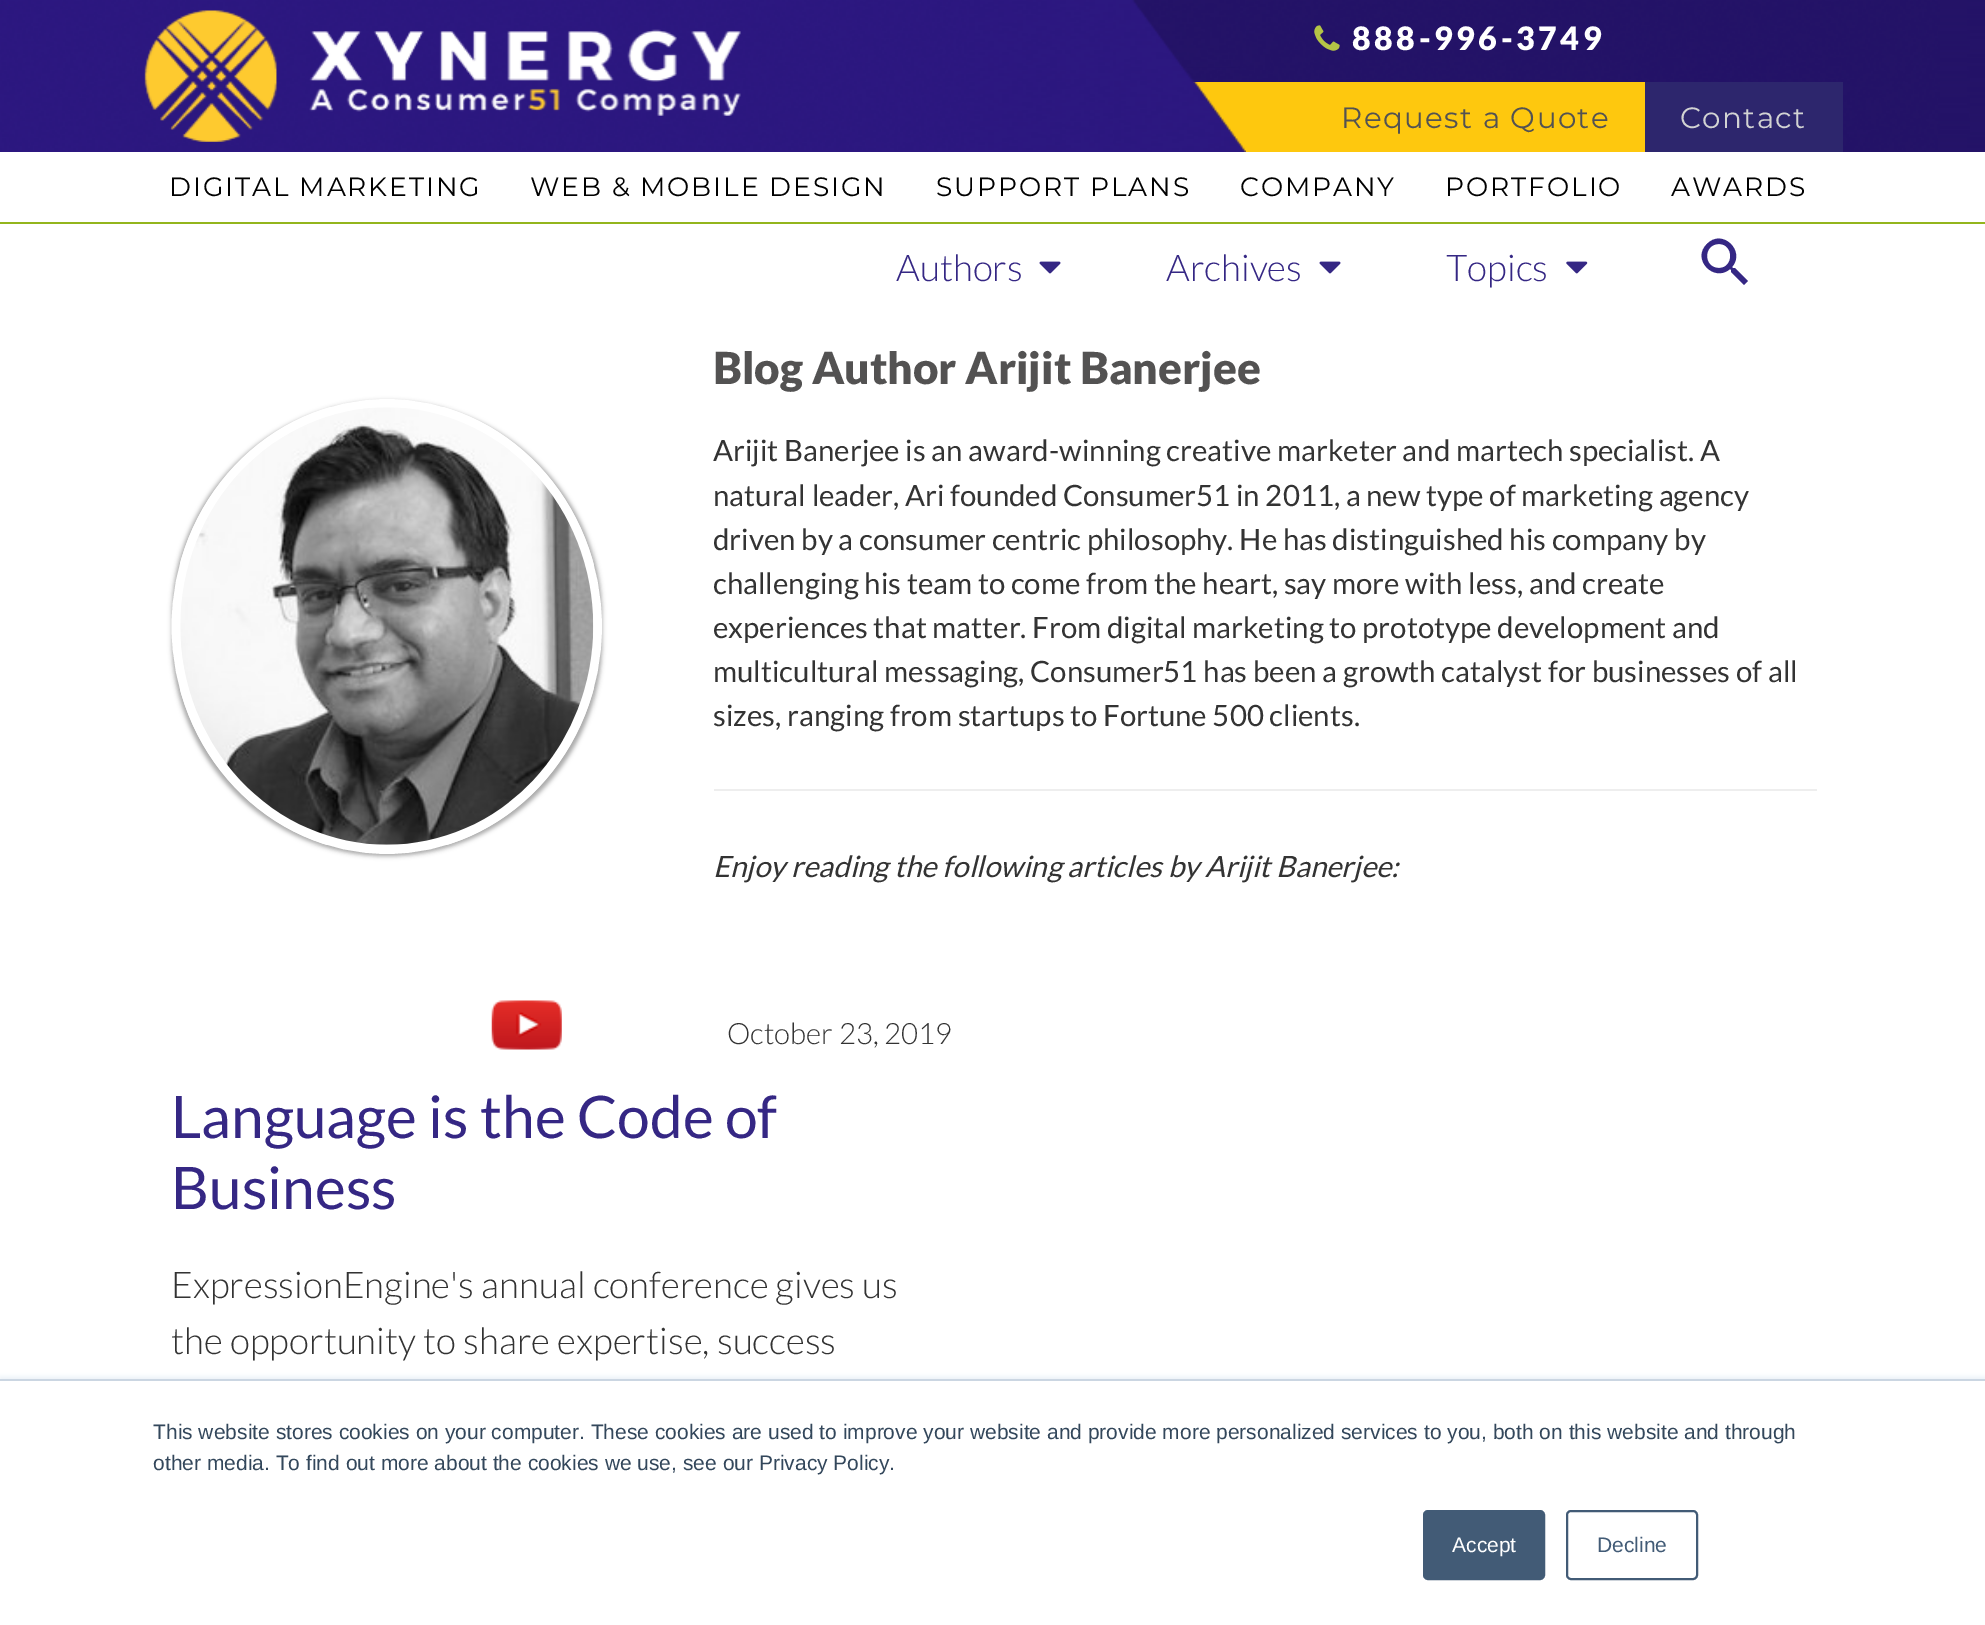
%!PS-Adobe-3.0
%%BoundingBox: 0 0 1985 1625
%%LanguageLevel: 3
%%Pages: 1
%%EndComments
%%BeginProlog
/setink { dup -16 bitshift 255 div exch dup -8 bitshift 255 and 255 div exch 255 and 255 div setrgbcolor } def
/usefont { [ exch dup neg 0 0 3 -1 roll 0 0 ] selectfont } def
/setalpha { dup .setfillconstantalpha .setstrokeconstantalpha } def
/rrect { 5 dict begin { /r /h /w /y /x } { exch def } forall
  x r add y moveto x w add y 2 copy h add r arct x w add y h add x 1 index r arct
  x y h add x y r arct x y 2 copy exch w add exch r arct closepath end } def
/softshadow { 12 dict begin { /a /b /q /h /w /y /x } { exch def } forall gsave /was 0 def
  9 -2 -9 { dup b mul 4 div /e exch def 1 sub .425 mul 2.718 exch exp 1 add a .99 .min exch div /now exch def
    1 1 now sub 1 was sub div sub setalpha /was now def
    w h .min e 2 mul add 0 gt { x e sub y e sub w e 2 mul add h e 2 mul add
      q e add b .6 mul add w h .min 2 div e add .min 0 .max rrect fill } if } for grestore end } def
/drawimage { 5 dict begin { /h /w /y /x /name } { exch def } forall
  gsave x y translate w h scale
  w h 8 [w 0 0 h 0 0] name (r) file false 3 colorimage grestore end } def
%%EndProlog
%%BeginSetup
<< /PageSize [1985 1625] /PageUsesTransparency true >> setpagedevice
%%EndSetup
%%Page: 1 1
0 .pushpdf14devicefilter
0 1625 translate 1 -1 scale
4 setmiterlimit
16#FFFFFF setink
0 0 1985 1625 rectfill
(img1.raw) 0 0 1985 152 drawimage
(img2.raw) 144 10 133 132 drawimage
(img3.raw) 309 29 432 87 drawimage
16#FEC80E setink
1193 82 452 70 rectfill
(img4.raw) 1113 0 133 152 drawimage
(img5.raw) 1314 25 26 26 drawimage
/Lato-Black 32.25 usefont
16#FFFFFF setink
1352 50 moveto 3.5 0 (888-996-3749) ashow
/Montserrat-Regular 29.4 usefont
16#535252 setink
1341 128 moveto 1.4 0 (Request a Quote) ashow
16#2D266D setink
1645 82 198 70 rectfill
16#D2D3D3 setink
1680 128 moveto 1.4 0 (Contact) ashow
16#93B51C setink
0 222 1985 2 rectfill
/Montserrat-Regular 26.5 usefont
16#010101 setink
169 196 moveto 1.9 0 (DIGITAL MARKETING) ashow
530 196 moveto 1.9 0 (WEB & MOBILE DESIGN) ashow
936 196 moveto 1.9 0 (SUPPORT PLANS) ashow
1240 196 moveto 1.9 0 (COMPANY) ashow
1445 196 moveto 1.9 0 (PORTFOLIO) ashow
1671 196 moveto 1.9 0 (AWARDS) ashow
/Lato-Light 36.75 usefont
16#352784 setink
896 281 moveto (Authors) show
(img6.raw) 1039 261 22 13 drawimage
1166 281 moveto (Archives) show
(img6.raw) 1319 261 22 13 drawimage
1446 281 moveto (Topics) show
(img7.raw) 1566 261 22 13 drawimage
1735 268 moveto 1733 268 lineto 1732 267 lineto 1746 251 1722 228 1707 244 curveto 1691 259 1714 283 1730 269 curveto 1731 270 lineto 1731 272 lineto 1744 285 lineto 1748 281 lineto closepath 1719 268 moveto 1703 268 1703 244 1719 244 curveto 1734 244 1734 268 1719 268 curveto closepath fill
16#000000 setink
172 401 430 455 215 2.5 0.12 softshadow
172 401 430 455 215 2 0.24 softshadow
16#FFFFFF setink
8.8 setlinewidth
387 403.5 moveto 503 403.5 597.5 503.5 597.5 626.5 curveto 597.5 749.5 503 849.5 387 849.5 curveto 270.5 849.5 176 749.5 176 626.5 curveto 176 503.5 270.5 403.5 387 403.5 curveto closepath stroke
(img8.raw) 180 407 414 438 drawimage
/Lato-Black 44.1 usefont
16#535252 setink
713 384 moveto (Blog Author Arijit Banerjee) show
/Lato-Regular 29.4 usefont
16#333333 setink
[
    [(Arijit Banerjee is an award-winning creative marketer and martech specialist. A) 713 461]
    [(natural leader, Ari founded Consumer51 in 2011, a new type of marketing agency) 713 506]
    [(driven by a consumer centric philosophy. He has distinguished his company by) 713 550]
    [(challenging his team to come from the heart, say more with less, and create) 713 594]
] { aload pop moveto show } forall
713 638 moveto -0.1 0 32 (experiences that matter. From digital marketing to prototype development and) widthshow
713 682 moveto (multicultural messaging, Consumer51 has been a growth catalyst for businesses of all) show
713 726 moveto (sizes, ranging from startups to Fortune 500 clients.) show
16#EEEEEE setink
714 789 1103 2 rectfill
/Lato-Italic 29.4 usefont
16#333333 setink
713 877 moveto (Enjoy reading the following articles by Arijit Banerjee:) show
(img9.raw) 491 1000 71 50 drawimage
/Lato-Light 29.4 usefont
727 1044 moveto (October 23, 2019) show
/Lato-Regular 58.75 usefont
16#352784 setink
171 1138 moveto (Language is the Code of) show
171 1209 moveto (Business) show
/Lato-Light 36.75 usefont
16#333333 setink
171 1298 moveto (ExpressionEngine's annual conference gives us) show
171 1354 moveto (the opportunity to share expertise, success) show
16#EAF0F6 setink
0 1377 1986 247 0 2.5 1 softshadow
16#FFFFFF setink
0 1381 1985 244 rectfill
16#CBD6E2 setink
0 1379 1985 2 rectfill
/LiberationSans-Regular 21 usefont
16#33475B setink
153 1439 moveto (This website stores cookies on your computer. These cookies are used to improve your website and provide more personalized services to you, both on this website and through) show
153 1470 moveto (other media. To find out more about the cookies we use, see our Privacy Policy.) show
16#425B76 setink
1424 1511 120 68 4 rrect gsave fill grestore
2 setlinewidth
stroke
16#FFFFFF setink
1452 1552 moveto (Accept) show
16#425B76 setink
1567 1511 130 68 4 rrect stroke
1597 1552 moveto (Decline) show
.poppdf14devicefilter showpage
%%EOF
